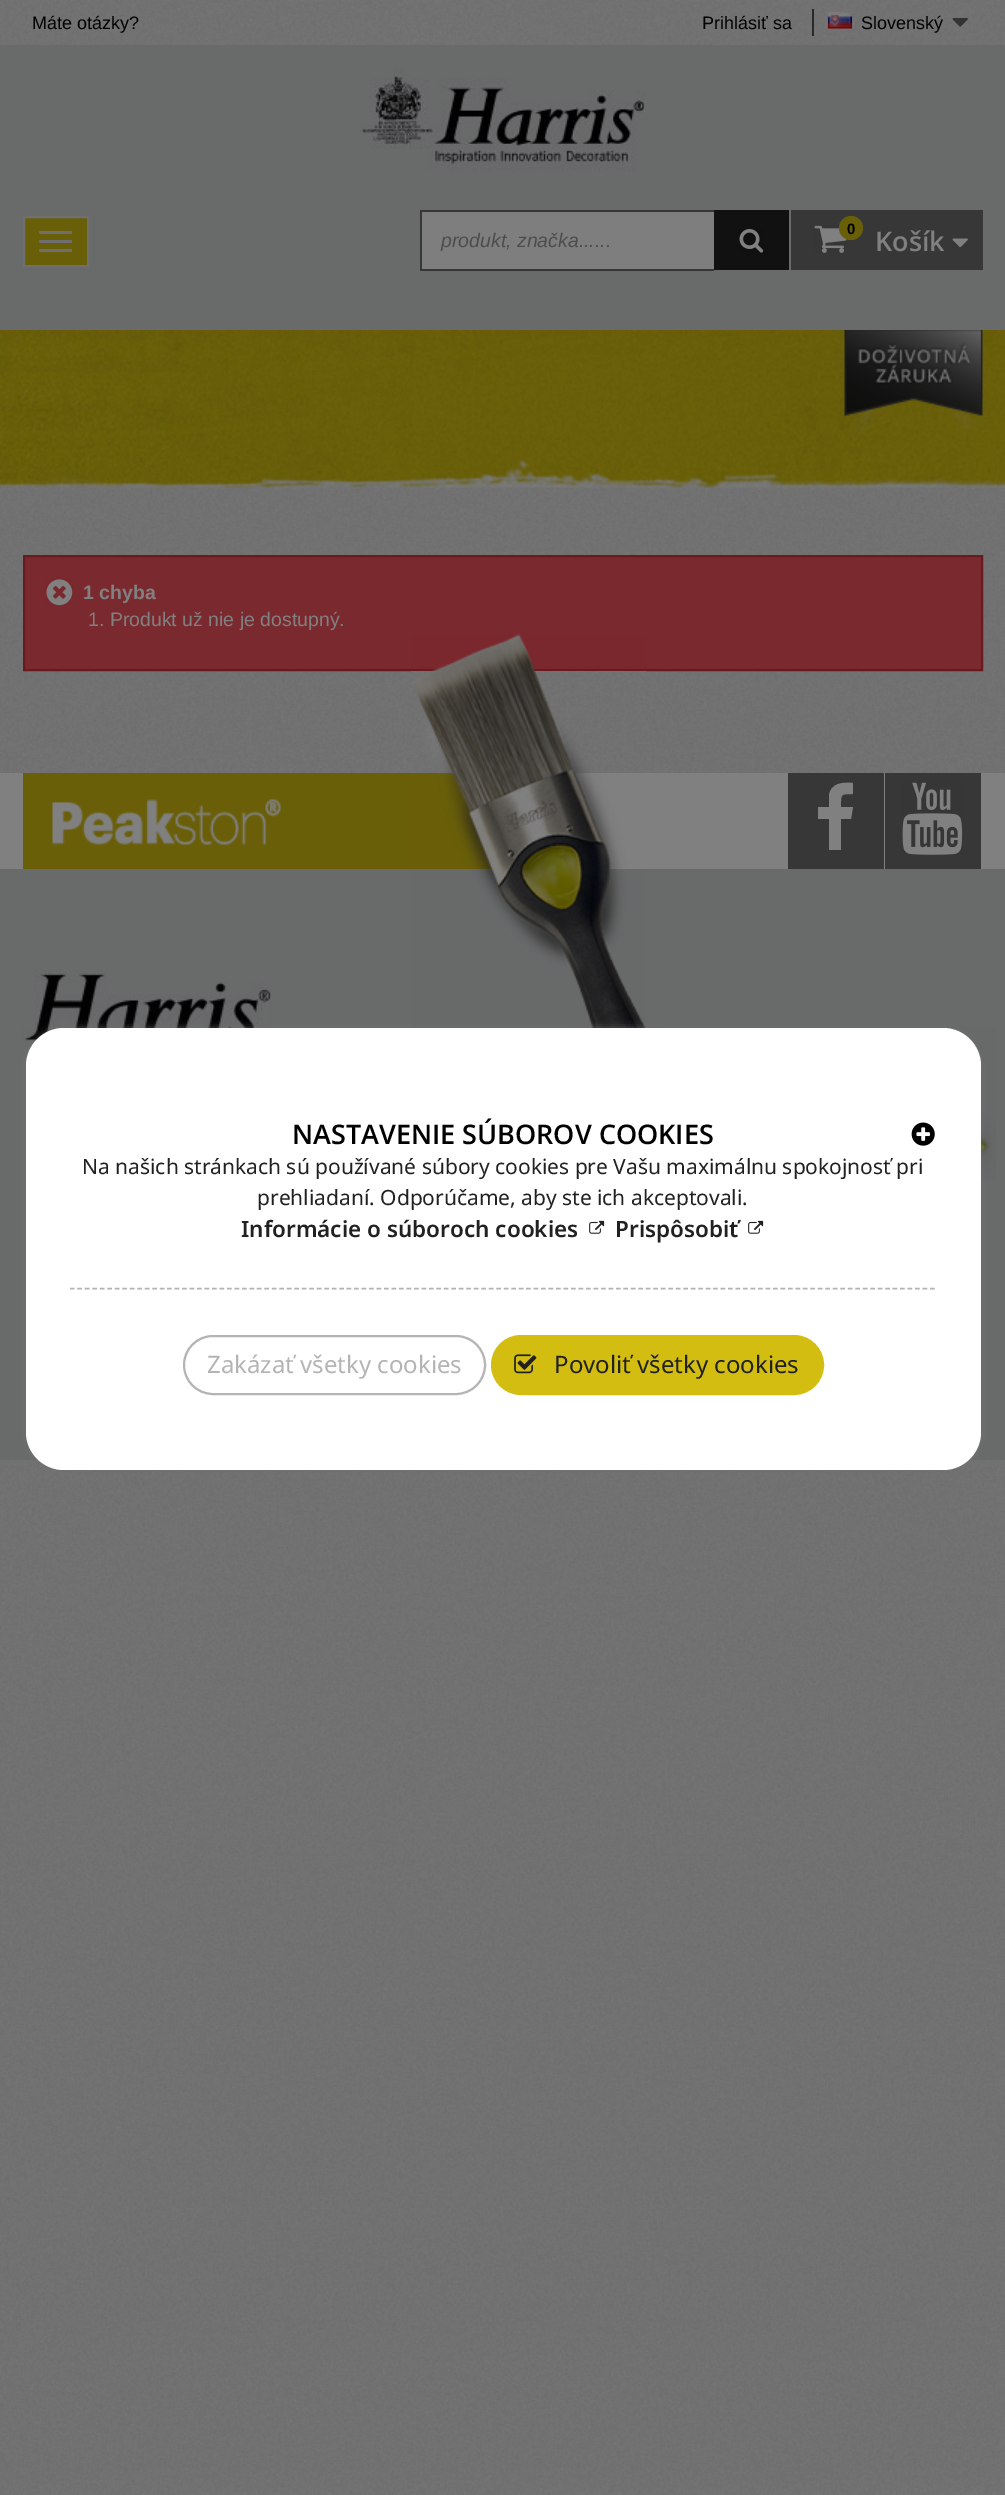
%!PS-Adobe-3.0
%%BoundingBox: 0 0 1005 2495
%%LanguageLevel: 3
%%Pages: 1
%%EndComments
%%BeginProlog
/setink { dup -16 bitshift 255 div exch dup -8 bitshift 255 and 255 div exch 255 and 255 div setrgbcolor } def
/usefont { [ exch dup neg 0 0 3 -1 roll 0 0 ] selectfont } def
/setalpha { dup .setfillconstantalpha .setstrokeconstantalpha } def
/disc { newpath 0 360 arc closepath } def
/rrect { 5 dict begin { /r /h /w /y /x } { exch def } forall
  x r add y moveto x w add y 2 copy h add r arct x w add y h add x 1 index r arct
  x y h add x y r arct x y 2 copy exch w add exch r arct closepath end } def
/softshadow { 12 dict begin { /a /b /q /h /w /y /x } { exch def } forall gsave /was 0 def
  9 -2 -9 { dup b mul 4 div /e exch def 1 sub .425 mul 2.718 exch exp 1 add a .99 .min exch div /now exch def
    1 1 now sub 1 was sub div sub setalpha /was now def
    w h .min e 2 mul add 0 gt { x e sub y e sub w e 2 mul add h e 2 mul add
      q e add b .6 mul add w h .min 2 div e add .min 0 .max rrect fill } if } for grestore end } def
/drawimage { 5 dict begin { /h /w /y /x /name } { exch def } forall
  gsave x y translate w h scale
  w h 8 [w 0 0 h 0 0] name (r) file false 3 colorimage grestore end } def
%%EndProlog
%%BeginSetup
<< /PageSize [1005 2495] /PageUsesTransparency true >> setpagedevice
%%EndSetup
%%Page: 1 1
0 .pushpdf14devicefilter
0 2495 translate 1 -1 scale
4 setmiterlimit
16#FFFFFF setink
0 0 1005 2495 rectfill
(img1.raw) 0 487 1005 2008 drawimage
16#696A6A setink
0 45 1005 285 rectfill
(img2.raw) 0 0 1005 45 drawimage
/LiberationSans-Regular 18 usefont
16#010101 setink
32 29 moveto (Máte otázky?) show
702 29 moveto (Prihlásiť sa) show
16#292929 setink
812 9 2 27 rectfill
(img3.raw) 828 12 24 17 drawimage
16#010101 setink
861 29 moveto (Slovenský) show
(img4.raw) 952 18 16 9 drawimage
(img5.raw) 361 69 286 102 drawimage
16#6A5F09 setink
24 217 moveto 88 217 lineto 88 266 lineto 24 266 lineto closepath gsave fill grestore
16#6F6F6F setink
2 setlinewidth
stroke
39 231 33 3 1.5 rrect fill
39 240 33 3 1.5 rrect fill
39 249 33 3 1.5 rrect fill
[
    [422 212 292 57 16#7E7E7E]
    [420 210 294 2 16#373737]
    [420 269 294 2 16#373737]
    [420 210 2 60 16#373737]
] { aload pop setink rectfill } forall
/LiberationSans-Italic 19.5 usefont
16#4D4D4D setink
441 247 moveto (produkt, značka......) show
16#111111 setink
714 210 75 60 rectfill
(img6.raw) 739 229 25 24 drawimage
16#373737 setink
791 210 192 60 rectfill
(img7.raw) 814 225 33 28 drawimage
16#6A5F09 setink
851 228 12 disc fill
/LiberationSans-Bold 15 usefont
16#010101 setink
847 234 moveto (0) show
/OpenSans-SemiBold 27 usefont
16#808080 setink
875 251 moveto (Košík) show
(img8.raw) 952 238 16 10 drawimage
(img9.raw) 0 330 1005 158 drawimage
(img10.raw) 844 330 139 86 drawimage
16#7A292E setink
24 556 moveto 982 556 lineto 982 670 lineto 24 670 lineto closepath gsave fill grestore
16#6A191F setink
stroke
(img11.raw) 46 579 27 27 drawimage
/LiberationSans-Bold 19.5 usefont
16#808080 setink
83 599 moveto (1 chyba) show
/LiberationSans-Regular 19.5 usefont
88 626 moveto (1. Produkt už nie je dostupný.) show
[
    [0 869 1005 591 16#696A6A]
    [0 773 1005 96 16#808080]
    [23 773 470 96 16#6A5F09]
] { aload pop setink rectfill } forall
(img16.raw) 643 1027 353 154 drawimage
(img12.raw) 411 634 236 394 drawimage
(img13.raw) 52 799 229 46 drawimage
16#373737 setink
788 773 96 96 rectfill
16#808080 setink
853 783 moveto 853 794 lineto 840 794 841 794 841 807 curveto 853 807 lineto 851 819 lineto 841 819 lineto 841 850 lineto 829 850 lineto 829 819 lineto 818 819 lineto 818 807 lineto 829 807 lineto 829 795 lineto 831 783 843 782 853 783 curveto closepath fill
16#373737 setink
885 773 96 96 rectfill
(img14.raw) 902 782 61 73 drawimage
(img15.raw) 22 970 250 73 drawimage
gsave
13 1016 moveto 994 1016 lineto 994 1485 lineto 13 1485 lineto closepath 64 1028 moveto 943 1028 lineto 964 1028 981 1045 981 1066 curveto 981 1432 lineto 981 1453 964 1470 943 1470 curveto 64 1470 lineto 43 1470 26 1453 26 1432 curveto 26 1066 lineto 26 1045 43 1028 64 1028 curveto closepath eoclip newpath
16#707070 setink
26 1029 955 443 38 4 1 softshadow
grestore
16#FFFFFF setink
26 1028 955 442 38 rrect fill
16#B4B4B4 setink
1.5 setlinewidth
[4.5 2.98] 0 setdash
70 1288.5 moveto 935.5 1288.5 lineto stroke
/OpenSans-SemiBold 27 usefont
16#010101 setink
292 1144 moveto (NASTAVENIE SÚBOROV COOKIES) show
(img17.raw) 911 1122 24 24 drawimage
/NotoSans-Regular 21 usefont
16#212121 setink
82 1174 moveto (Na našich stránkach sú používané súbory cookies pre Vašu maximálnu spokojnosť pri) show
257 1205 moveto (prehliadaní. Odporúčame, aby ste ich akceptovali.) show
/NotoSans-SemiBold 22.5 usefont
241 1237 moveto (Informácie o súboroch cookies) show
(img18.raw) 589 1220 16 14 drawimage
615 1237 moveto (Prispôsobiť) show
(img18.raw) 748 1220 16 14 drawimage
16#B4B4B4 setink
2 setlinewidth
[] 0 setdash
184 1336 301 58 29 rrect stroke
/NotoSans-Regular 24 usefont
207 1373 moveto (Zakázať všetky cookies) show
16#D3BD11 setink
492 1336 331 58 29 rrect gsave fill grestore
stroke
(img19.raw) 514 1354 23 20 drawimage
16#212121 setink
554 1373 moveto (Povoliť všetky cookies) show
.poppdf14devicefilter showpage
%%EOF
